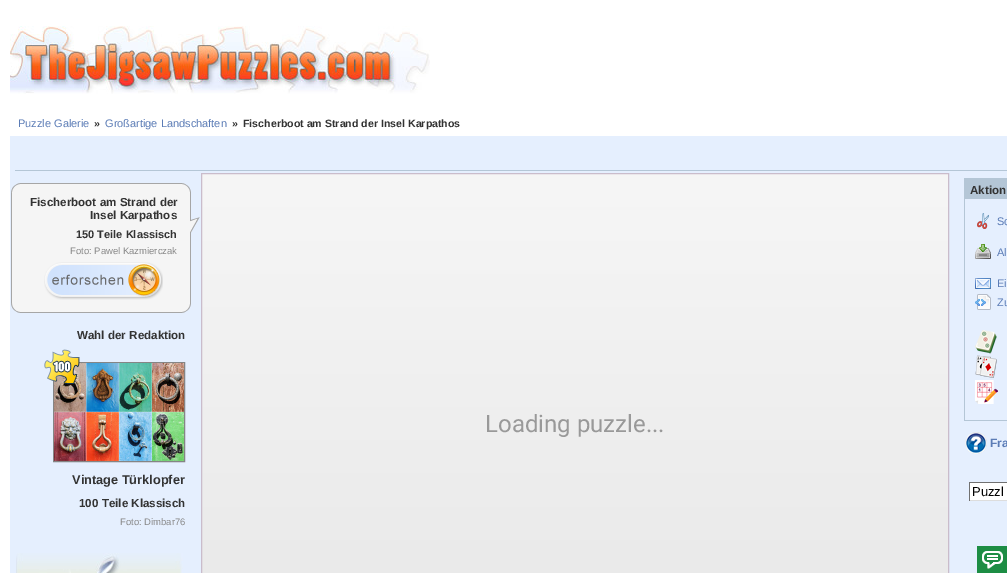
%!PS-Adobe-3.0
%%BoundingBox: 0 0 1007 573
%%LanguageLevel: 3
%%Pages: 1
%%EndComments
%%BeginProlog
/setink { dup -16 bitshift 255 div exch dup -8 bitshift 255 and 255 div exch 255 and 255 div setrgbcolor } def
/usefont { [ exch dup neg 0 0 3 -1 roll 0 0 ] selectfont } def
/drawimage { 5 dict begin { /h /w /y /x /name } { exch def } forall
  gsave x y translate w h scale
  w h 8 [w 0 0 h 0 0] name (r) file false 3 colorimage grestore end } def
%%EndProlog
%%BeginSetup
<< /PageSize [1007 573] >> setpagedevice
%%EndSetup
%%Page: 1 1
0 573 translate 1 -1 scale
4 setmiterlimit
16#FFFFFF setink
0 0 1007 573 rectfill
(img1.raw) 10 26 420 68 drawimage
/LiberationSans-Regular 11 usefont
16#5B7CB6 setink
18 127 moveto (Puzzle Galerie) show
/LiberationSans-Bold 10.6 usefont
16#333333 setink
94 127 moveto (») show
/LiberationSans-Regular 11 usefont
16#5B7CB6 setink
105 127 moveto (Großartige Landschaften) show
/LiberationSans-Bold 10.6 usefont
16#333333 setink
232 127 moveto (») show
243 127 moveto (Fischerboot am Strand der Insel Karpathos) show
16#E5EFFE setink
10 136 997 437 rectfill
16#B4C6D6 setink
15 170 992 1 rectfill
(img2.raw) 11 183 189 130 drawimage
/LiberationSans-Bold 11.6 usefont
16#333333 setink
30 206 moveto (Fischerboot am Strand der) show
90 219 moveto (Insel Karpathos) show
/LiberationSans-Bold 11 usefont
76 238 moveto (150 Teile Klassisch) show
/LiberationSans-Regular 9.5 usefont
16#888888 setink
70 254 moveto (Foto: Pawel Kazmierczak) show
(img3.raw) 44 262 119 38 drawimage
/LiberationSans-Bold 11.6 usefont
16#333333 setink
77 339 moveto (Wahl der Redaktion) show
16#858585 setink
53.5 362.5 131 99 rectstroke
(img5.raw) 54 363 130 98 drawimage
(img4.raw) 44 349 36 35 drawimage
/LiberationSans-Bold 12.75 usefont
16#333333 setink
72 484 moveto (Vintage Türklopfer) show
/LiberationSans-Bold 11.6 usefont
79 507 moveto (100 Teile Klassisch) show
/LiberationSans-Regular 9.5 usefont
16#888888 setink
120 525 moveto (Foto: Dimbar76) show
(img6.raw) 16 553 167 20 drawimage
gsave 202 174 moveto 948 174 lineto 948 573 lineto 202 573 lineto closepath clip newpath
<< /ShadingType 2 /ColorSpace /DeviceRGB /Coords [575 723 575 173] /Extend [true true] /Function << /FunctionType 2 /Domain [0 1] /C0 [0.898 0.902 0.898] /C1 [0.965 0.965 0.965] /N 1 >> >> shfill grestore
16#CABCCB setink
201.5 173.5 747 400 rectstroke
/Roboto-Regular 24 usefont
16#999999 setink
485 432 moveto (Loading puzzle...) show
16#B4C6D6 setink
964 178 43 243 rectfill
/LiberationSans-Bold 11.6 usefont
16#333333 setink
970 194 moveto (Aktion) show
16#E5EFFE setink
965 199 42 221 rectfill
(img7.raw) 977 213 12 16 drawimage
/LiberationSans-Regular 11 usefont
16#5B7CB6 setink
997 225 moveto (Sc) show
(img8.raw) 975 244 16 15 drawimage
997 256 moveto (Al) show
(img9.raw) 975 278 16 11 drawimage
997 287 moveto (Ei) show
(img10.raw) 975 294 16 16 drawimage
997 306 moveto (Zu) show
(img11.raw) 975 330 22 24 drawimage
(img12.raw) 975 355 22 23 drawimage
(img13.raw) 975 380 23 24 drawimage
(img14.raw) 965 432 22 22 drawimage
/LiberationSans-Bold 12 usefont
990 447 moveto (Fra) show
[
    [970 483 37 17 16#FFFFFF]
    [969 482 38 1 16#717171]
    [969 500 38 1 16#DDDDDD]
    [969 482 1 19 16#717171]
] { aload pop setink rectfill } forall
/LiberationSans-Regular 13 usefont
16#000000 setink
972 496 moveto (Puzzl) show
16#1D8D44 setink
977 546 30 27 rectfill
(img15.raw) 982 551 21 18 drawimage
showpage
%%EOF
